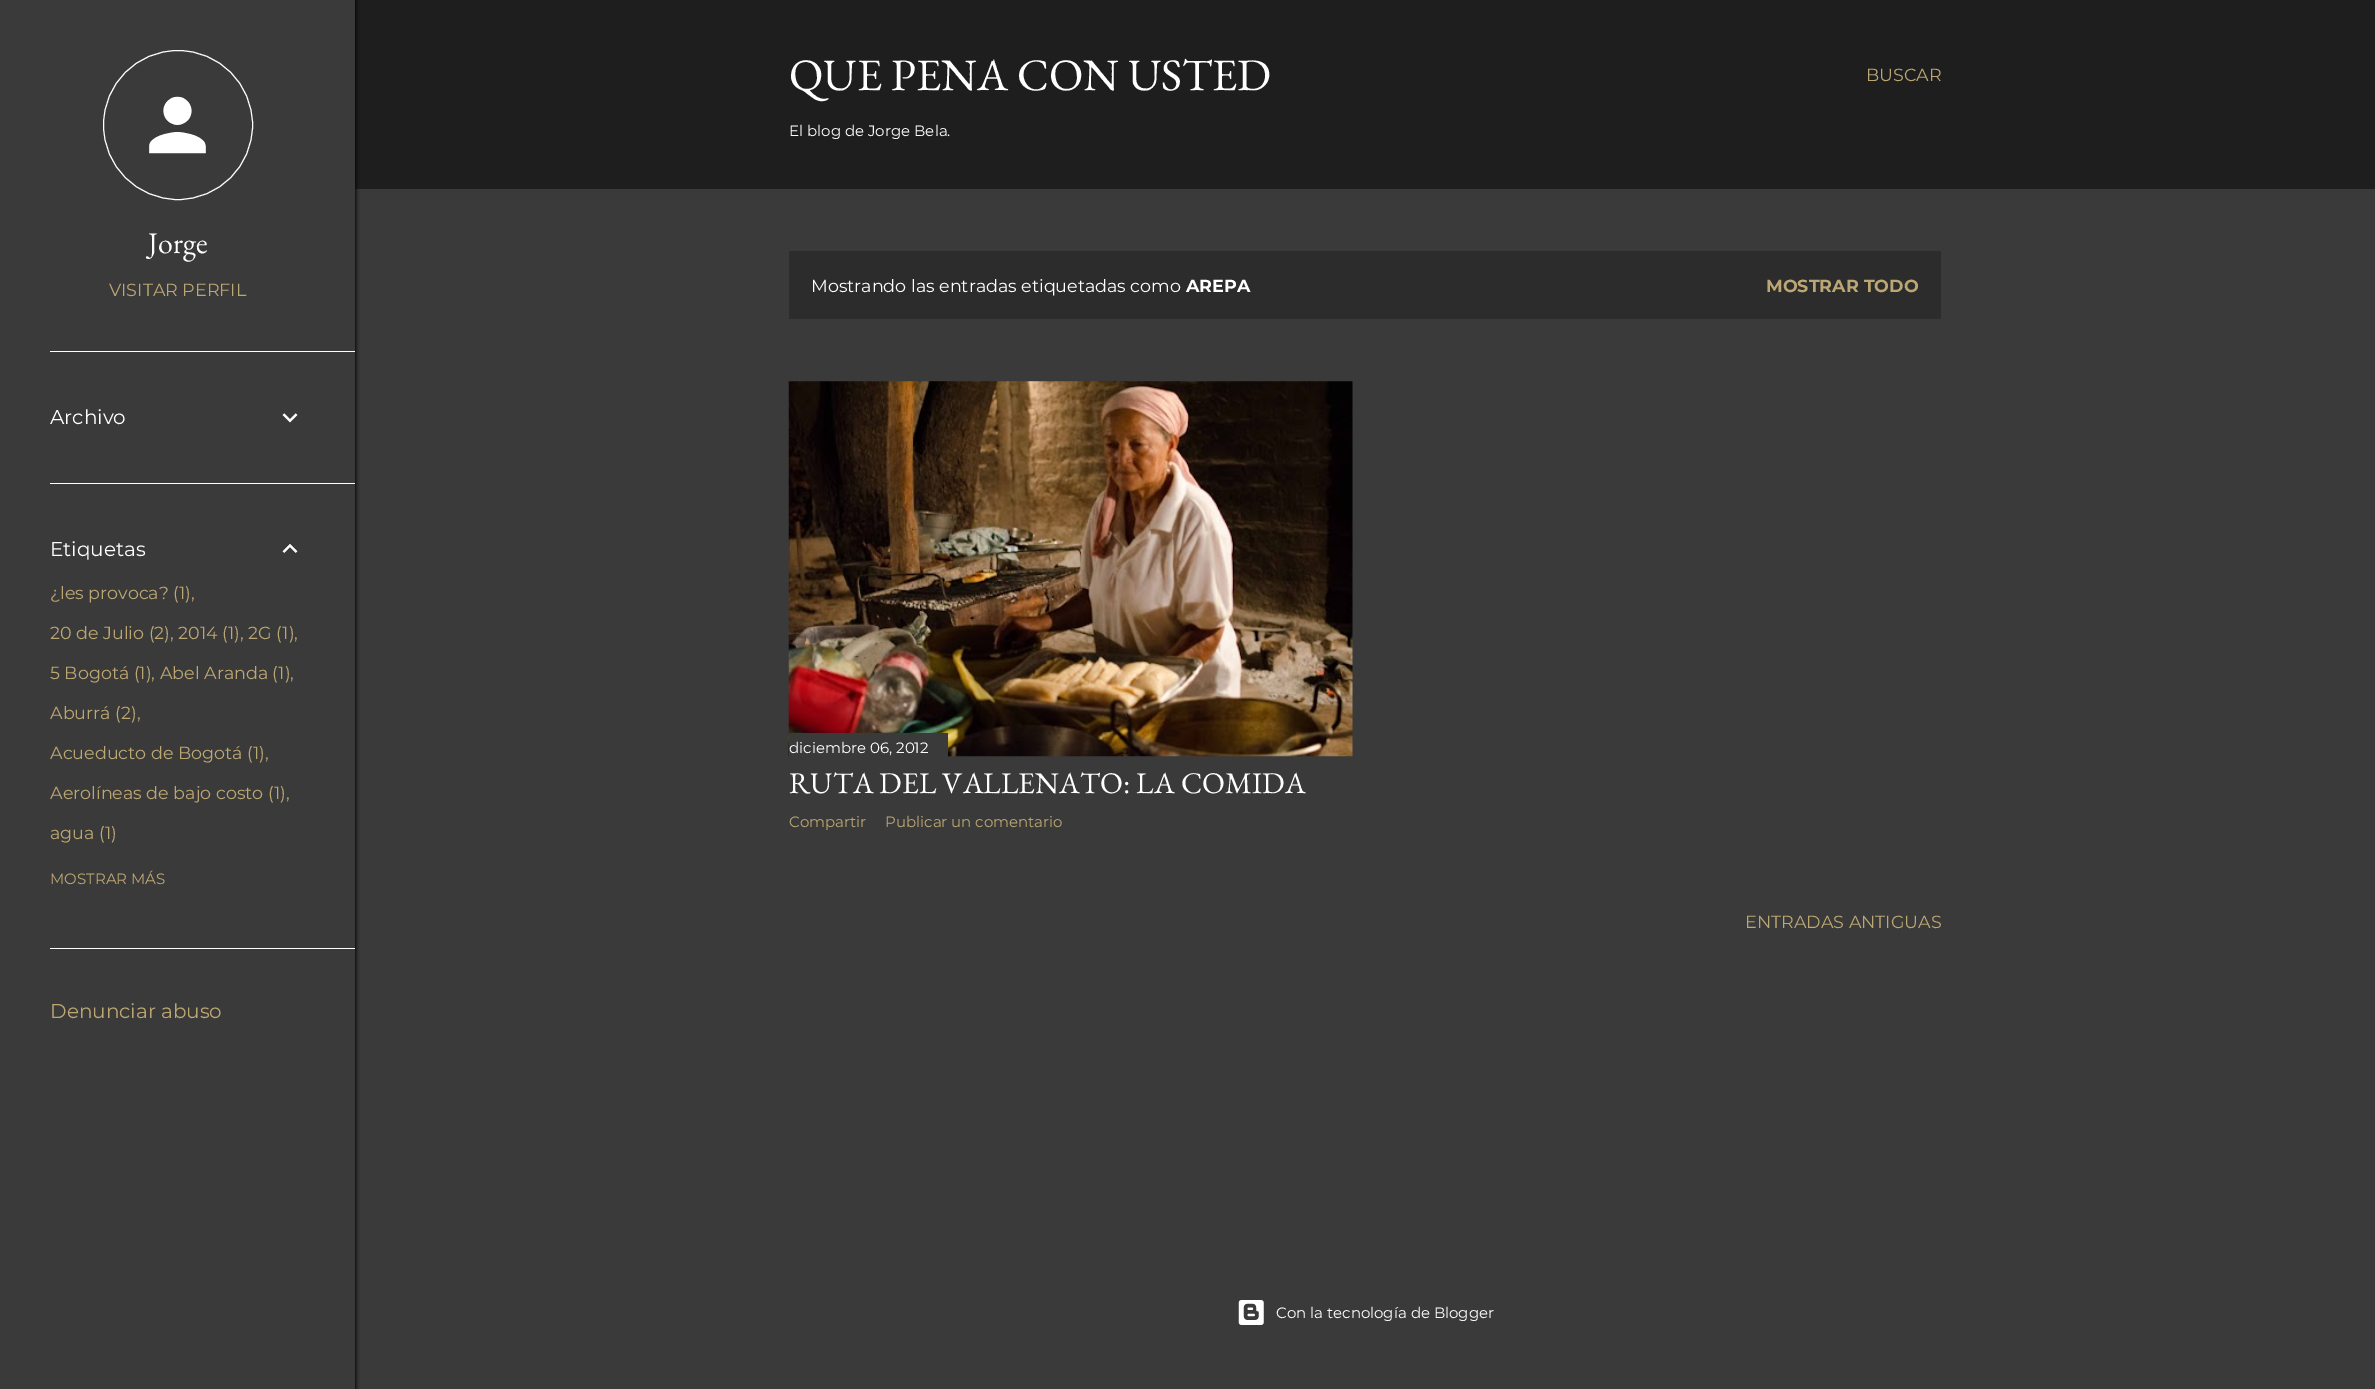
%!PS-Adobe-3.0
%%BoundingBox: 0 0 2375 1389
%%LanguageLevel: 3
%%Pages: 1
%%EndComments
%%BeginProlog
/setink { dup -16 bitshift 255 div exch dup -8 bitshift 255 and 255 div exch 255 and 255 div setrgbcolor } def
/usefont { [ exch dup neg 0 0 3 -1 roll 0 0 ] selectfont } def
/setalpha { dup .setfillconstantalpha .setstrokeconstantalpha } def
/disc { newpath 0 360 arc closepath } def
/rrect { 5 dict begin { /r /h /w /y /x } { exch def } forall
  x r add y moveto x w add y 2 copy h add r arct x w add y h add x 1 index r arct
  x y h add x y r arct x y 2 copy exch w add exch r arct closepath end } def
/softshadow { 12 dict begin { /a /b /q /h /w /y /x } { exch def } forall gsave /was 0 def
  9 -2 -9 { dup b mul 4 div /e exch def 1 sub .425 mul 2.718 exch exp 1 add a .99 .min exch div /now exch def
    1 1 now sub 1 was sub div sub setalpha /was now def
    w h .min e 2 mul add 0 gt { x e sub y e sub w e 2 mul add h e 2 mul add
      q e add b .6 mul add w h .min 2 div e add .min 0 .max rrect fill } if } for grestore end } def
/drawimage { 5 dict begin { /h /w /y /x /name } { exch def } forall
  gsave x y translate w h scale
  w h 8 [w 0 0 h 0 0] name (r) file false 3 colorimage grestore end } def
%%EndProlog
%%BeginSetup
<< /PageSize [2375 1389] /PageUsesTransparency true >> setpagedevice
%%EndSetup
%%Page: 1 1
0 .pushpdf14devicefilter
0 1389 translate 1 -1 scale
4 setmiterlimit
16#3A3A3A setink
0 0 2375 1389 rectfill
16#1E1E1E setink
355 0 2020 189 rectfill
gsave
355 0 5 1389 rectclip
16#000000 setink
1 0 355 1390 0 2 1 softshadow
grestore
16#FFFFFF setink
178 125 74.5 disc stroke
(img1.raw) 149 96 57 58 drawimage
/EBGaramond-Regular 30 usefont
148 253 moveto (Jorge) show
/Montserrat-Regular 17.5 usefont
16#BCA772 setink
109 296 moveto (VISITAR PERFIL) show
16#FFFFFF setink
50 351 305 1 rectfill
/Montserrat-Regular 20 usefont
50 424 moveto (Archivo) show
(img2.raw) 282 413 16 10 drawimage
50 483 305 1 rectfill
50 556 moveto (Etiquetas) show
(img3.raw) 282 543 16 10 drawimage
/Montserrat-Regular 17.5 usefont
16#BCA772 setink
[
    [(¿les provoca? \(1\),) 50 599]
    [(20 de Julio \(2\), 2014 \(1\), 2G \(1\),) 50 639]
    [(5 Bogotá \(1\), Abel Aranda \(1\),) 50 679]
    [(Aburrá \(2\),) 50 719]
    [(Acueducto de Bogotá \(1\),) 50 759]
    [(Aerolíneas de bajo costo \(1\),) 50 799]
    [(agua \(1\)) 50 839]
] { aload pop moveto show } forall
/Montserrat-Regular 15 usefont
50 884 moveto (MOSTRAR MÁS) show
16#FFFFFF setink
50 948 305 1 rectfill
/Montserrat-Regular 20 usefont
16#BCA772 setink
50 1018 moveto (Denunciar abuso) show
/EBGaramond-Regular 45 usefont
16#FFFFFF setink
789 90 moveto (QUE PENA CON USTED) show
/Montserrat-Regular 15 usefont
789 136 moveto (El blog de Jorge Bela.) show
/Montserrat-Regular 17.5 usefont
16#BCA772 setink
1866 81 moveto (BUSCAR) show
16#2C2C2C setink
789 251 1152 68 rectfill
16#FFFFFF setink
811 292 moveto (Mostrando las entradas etiquetadas como) show
/Montserrat-Bold 17.5 usefont
1186 292 moveto (AREPA) show
16#BCA772 setink
1766 292 moveto (MOSTRAR TODO) show
(img4.raw) 788 381 565 376 drawimage
16#3A3A3A setink
789 733 159 24 rectfill
/Montserrat-Regular 15 usefont
16#FFFFFF setink
789 753 moveto (diciembre 06, 2012) show
/EBGaramond-Regular 30 usefont
789 793 moveto (RUTA DEL VALLENATO: LA COMIDA) show
/Montserrat-Regular 15 usefont
16#BCA772 setink
789 827 moveto (Compartir) show
885 827 moveto (Publicar un comentario) show
/Montserrat-Regular 17.5 usefont
1745 928 moveto (ENTRADAS ANTIGUAS) show
(img5.raw) 1238 1300 26 25 drawimage
/Montserrat-Regular 15 usefont
16#FFFFFF setink
1276 1318 moveto (Con la tecnología de Blogger) show
.poppdf14devicefilter showpage
%%EOF
